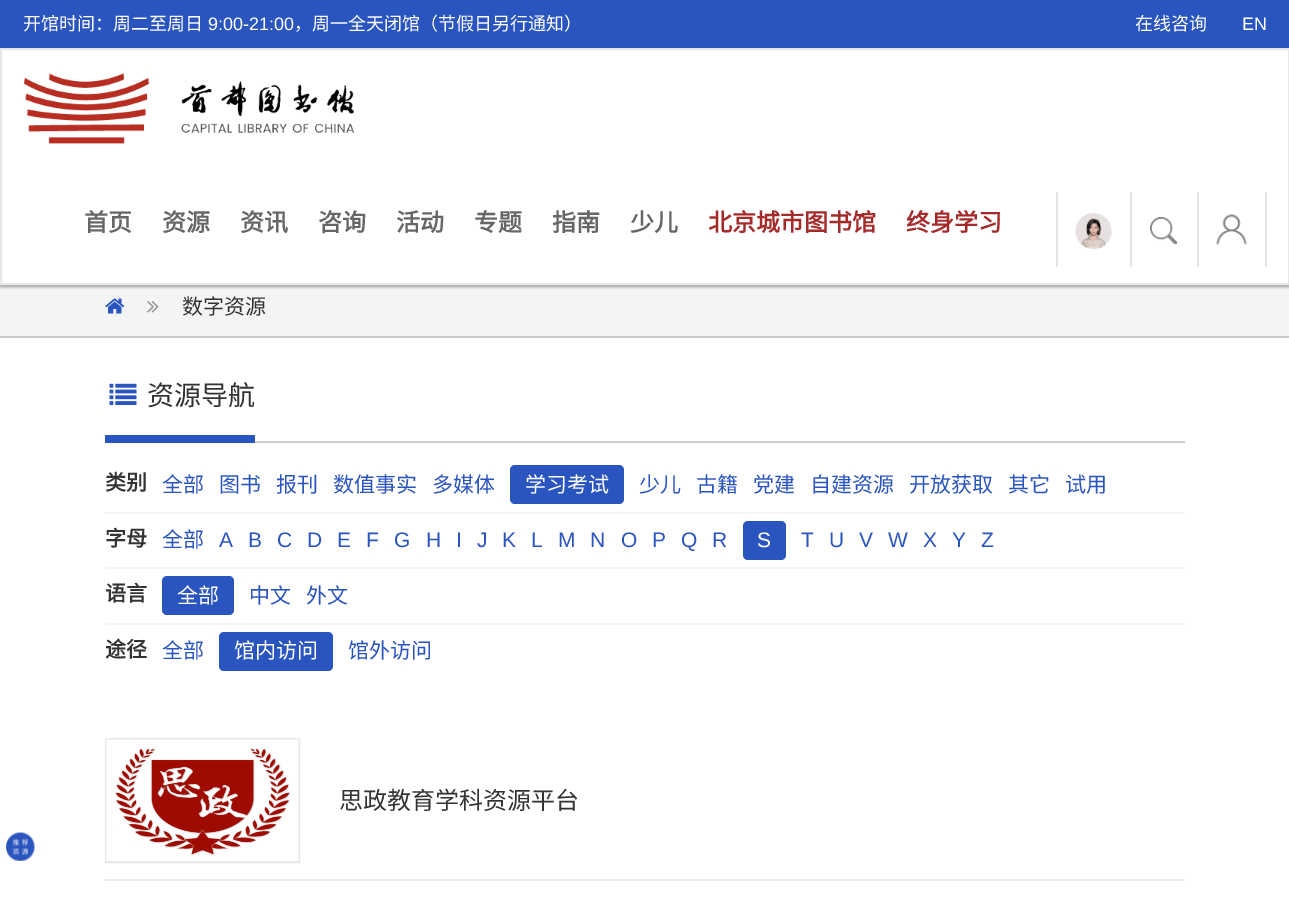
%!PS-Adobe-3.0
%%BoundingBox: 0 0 1289 906
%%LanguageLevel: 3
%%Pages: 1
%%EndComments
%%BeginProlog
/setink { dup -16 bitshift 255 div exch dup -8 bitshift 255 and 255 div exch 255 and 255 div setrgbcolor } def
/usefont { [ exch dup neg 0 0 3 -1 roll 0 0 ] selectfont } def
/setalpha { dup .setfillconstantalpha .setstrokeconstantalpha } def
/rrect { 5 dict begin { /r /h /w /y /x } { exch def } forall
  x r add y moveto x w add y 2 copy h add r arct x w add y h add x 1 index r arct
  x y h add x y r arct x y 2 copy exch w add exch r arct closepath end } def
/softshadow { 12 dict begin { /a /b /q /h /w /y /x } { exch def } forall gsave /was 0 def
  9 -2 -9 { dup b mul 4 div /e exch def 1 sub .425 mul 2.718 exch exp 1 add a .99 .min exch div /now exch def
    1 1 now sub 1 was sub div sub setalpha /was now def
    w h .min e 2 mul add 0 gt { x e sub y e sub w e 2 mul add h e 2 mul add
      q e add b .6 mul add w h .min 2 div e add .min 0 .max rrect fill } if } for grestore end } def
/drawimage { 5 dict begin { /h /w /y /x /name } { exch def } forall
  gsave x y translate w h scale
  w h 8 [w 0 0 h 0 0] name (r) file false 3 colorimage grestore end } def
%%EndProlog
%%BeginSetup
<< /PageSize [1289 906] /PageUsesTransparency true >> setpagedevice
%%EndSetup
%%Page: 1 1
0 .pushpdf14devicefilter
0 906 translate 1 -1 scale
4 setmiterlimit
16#FFFFFF setink
0 0 1289 906 rectfill
16#2A54BE setink
0 0 1289 48 rectfill
/NotoSansCJKSC-Regular 18 usefont
16#FFFFFF setink
23 30 moveto (开馆时间：周二至周日) show
/LiberationSans-Regular 18 usefont
208 30 moveto (9:00-21:00) show
/NotoSansCJKSC-Regular 18 usefont
294 30 moveto (，周一全天闭馆（节假日另行通知）) show
1135 30 moveto (在线咨询) show
/LiberationSans-Regular 18 usefont
1242 30 moveto (EN) show
16#F3F5F5 setink
0 285 1289 51 rectfill
16#999999 setink
0 50 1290 237 0 1.5 1 softshadow
16#FFFFFF setink
1 49 moveto 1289 49 lineto 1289 284 lineto 1 284 lineto closepath gsave fill grestore
16#E7E7E7 setink
2 setlinewidth
stroke
(img1.raw) 24 73 330 71 drawimage
/NotoSansCJKSC-Bold 24 usefont
16#666666 setink
[
    [(首页) 84 231]
    [(资源) 162 231]
    [(资讯) 240 231]
    [(咨询) 318 231]
    [(活动) 396 231]
    [(专题) 474 231]
    [(指南) 552 231]
    [(少儿) 630 231]
] { aload pop moveto show } forall
16#A52A2A setink
708 231 moveto (北京城市图书馆) show
906 231 moveto (终身学习) show
16#E5E5E5 setink
1056 192 2 75 rectfill
1130 192 2 75 rectfill
(img2.raw) 1075 213 37 36 drawimage
1197 192 2 75 rectfill
(img3.raw) 1150 217 28 28 drawimage
1265 192 2 75 rectfill
(img4.raw) 1216 214 31 31 drawimage
16#C9C9C9 setink
0 336 1289 2 rectfill
(img5.raw) 105 298 20 16 drawimage
(img6.raw) 147 301 12 12 drawimage
/NotoSansCJKSC-Regular 21 usefont
16#333333 setink
182 314 moveto (数字资源) show
16#CECECE setink
255 441 930 2 rectfill
16#2A54BE setink
105 435 150 8 rectfill
(img7.raw) 109 383 28 22 drawimage
/NotoSansCJKSC-Regular 27 usefont
16#333333 setink
147 405 moveto (资源导航) show
16#F5F5F5 setink
105 512 1080 2 rectfill
/NotoSansCJKSC-Bold 21 usefont
16#333333 setink
105 490 moveto (类别) show
/NotoSansCJKSC-Regular 21 usefont
16#2A54BE setink
[
    [(全部) 162 492]
    [(图书) 219 492]
    [(报刊) 276 492]
    [(数值事实) 333 492]
    [(多媒体) 432 492]
] { aload pop moveto show } forall
510 465 114 39 5 rrect fill
16#FFFFFF setink
525 492 moveto (学习考试) show
16#2A54BE setink
[
    [(少儿) 639 492]
    [(古籍) 696 492]
    [(党建) 753 492]
    [(自建资源) 810 492]
    [(开放获取) 909 492]
    [(其它) 1008 492]
    [(试用) 1065 492]
] { aload pop moveto show } forall
16#F5F5F5 setink
105 567 1080 2 rectfill
/NotoSansCJKSC-Bold 21 usefont
16#333333 setink
105 546 moveto (字母) show
/NotoSansCJKSC-Regular 21 usefont
16#2A54BE setink
162 547 moveto (全部) show
/LiberationSans-Regular 21 usefont
[
    [(A) 219 547]
    [(B) 248 547]
    [(C) 277 547]
    [(D) 307 547]
    [(E) 337 547]
    [(F) 366 547]
    [(G) 394 547]
    [(H) 426 547]
    [(I) 456 547]
    [(J) 477 547]
    [(K) 502 547]
    [(L) 531 547]
    [(M) 558 547]
    [(N) 590 547]
    [(O) 621 547]
    [(P) 652 547]
    [(Q) 681 547]
    [(R) 712 547]
] { aload pop moveto show } forall
743 521 43 39 5 rrect fill
16#FFFFFF setink
757 547 moveto (S) show
16#2A54BE setink
[
    [(T) 801 547]
    [(U) 829 547]
    [(V) 859 547]
    [(W) 888 547]
    [(X) 923 547]
    [(Y) 952 547]
    [(Z) 981 547]
] { aload pop moveto show } forall
16#F5F5F5 setink
105 623 1080 2 rectfill
/NotoSansCJKSC-Bold 21 usefont
16#333333 setink
105 601 moveto (语言) show
16#2A54BE setink
162 576 72 39 5 rrect fill
/NotoSansCJKSC-Regular 21 usefont
16#FFFFFF setink
177 603 moveto (全部) show
16#2A54BE setink
249 603 moveto (中文) show
306 603 moveto (外文) show
/NotoSansCJKSC-Bold 21 usefont
16#333333 setink
105 657 moveto (途径) show
/NotoSansCJKSC-Regular 21 usefont
16#2A54BE setink
162 658 moveto (全部) show
219 632 114 39 5 rrect fill
16#FFFFFF setink
234 658 moveto (馆内访问) show
16#2A54BE setink
348 658 moveto (馆外访问) show
16#EBEBEB setink
105 879 1080 2 rectfill
16#E9E9E9 setink
106 739 193 123 rectstroke
(img8.raw) 106 739 193 122 drawimage
/NotoSansCJKSC-Regular 24 usefont
16#333333 setink
339 809 moveto (思政教育学科资源平台) show
(img9.raw) 6 832 29 29 drawimage
.poppdf14devicefilter showpage
%%EOF
